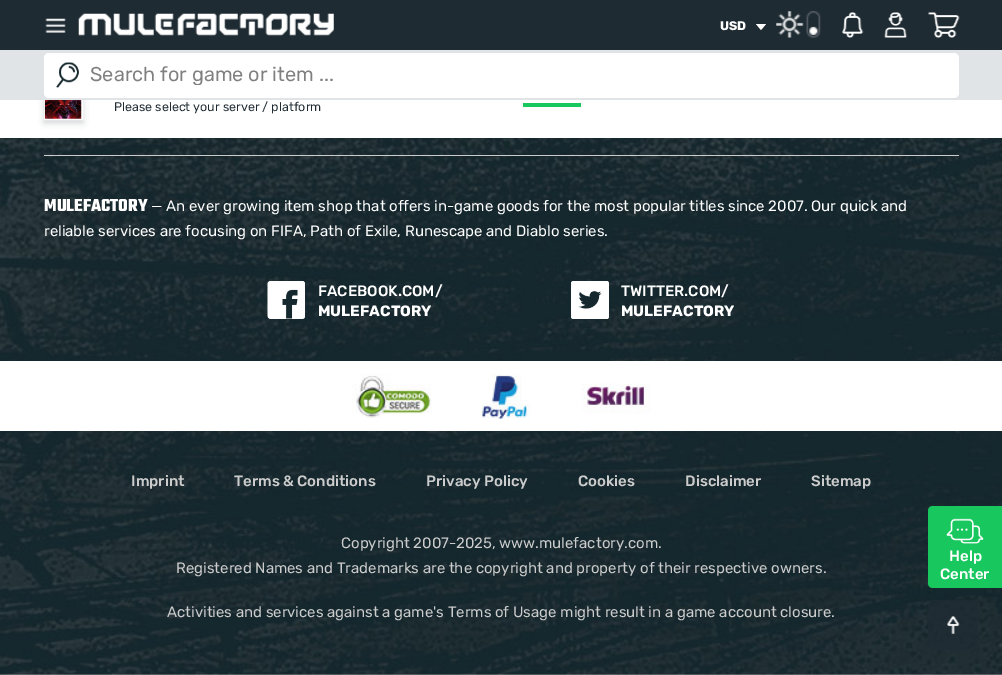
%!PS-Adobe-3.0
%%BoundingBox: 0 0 1002 675
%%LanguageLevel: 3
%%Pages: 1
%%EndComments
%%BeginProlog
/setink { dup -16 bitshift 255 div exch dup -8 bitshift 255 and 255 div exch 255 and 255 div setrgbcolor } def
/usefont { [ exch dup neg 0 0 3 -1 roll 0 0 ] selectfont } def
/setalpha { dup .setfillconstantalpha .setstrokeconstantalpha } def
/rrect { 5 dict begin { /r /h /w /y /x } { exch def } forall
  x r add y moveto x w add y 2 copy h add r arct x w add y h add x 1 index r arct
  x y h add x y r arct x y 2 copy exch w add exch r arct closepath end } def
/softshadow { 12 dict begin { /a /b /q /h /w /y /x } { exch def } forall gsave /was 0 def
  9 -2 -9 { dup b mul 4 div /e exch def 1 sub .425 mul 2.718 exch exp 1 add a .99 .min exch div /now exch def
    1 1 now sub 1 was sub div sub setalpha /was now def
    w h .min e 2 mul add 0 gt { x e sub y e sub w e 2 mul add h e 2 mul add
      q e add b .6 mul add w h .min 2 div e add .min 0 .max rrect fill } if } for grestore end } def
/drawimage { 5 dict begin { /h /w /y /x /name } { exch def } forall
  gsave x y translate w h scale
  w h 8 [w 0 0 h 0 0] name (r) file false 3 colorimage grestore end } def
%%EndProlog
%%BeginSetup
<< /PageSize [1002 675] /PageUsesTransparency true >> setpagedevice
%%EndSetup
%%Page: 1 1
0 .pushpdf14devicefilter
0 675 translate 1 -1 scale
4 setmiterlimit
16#FFFFFF setink
0 0 1002 675 rectfill
(img9.raw) 0 138 1002 537 drawimage
16#1F2B33 setink
0 53 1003 87 0 3 0.2 softshadow
0 0 1002 50 rectfill
(img1.raw) 45 18 21 15 drawimage
(img2.raw) 78 13 256 23 drawimage
/Rubik-Bold 12.5 usefont
16#FFFFFF setink
720 30 moveto (USD) show
756 24 moveto 766 24 lineto 761 30 lineto closepath fill
(img3.raw) 776 11 45 27 drawimage
(img4.raw) 842 12 22 26 drawimage
(img5.raw) 884 12 23 26 drawimage
(img6.raw) 928 12 32 26 drawimage
0 100 1002 38 rectfill
16#1F2B33 setink
44 69 39 54 0 3 0.2 softshadow
16#FFFFFF setink
44.5 66.5 38 53 rectstroke
16#E0E4E7 setink
0 50 1002 50 rectfill
16#FFFFFF setink
44 53 915 45 5 rrect fill
(img7.raw) 56 62 23 26 drawimage
gsave
90 65 844 20 rectclip
/Rubik-Regular 20 usefont
16#808080 setink
90 81 moveto (Search for game or item ...) show
grestore
(img8.raw) 44 100 38 19 drawimage
/Rubik-Regular 12.5 usefont
16#1F2B33 setink
114 111 moveto (Please select your server / platform) show
16#18C75D setink
523 103 58 4 rectfill
16#CCCCCC setink
44 155 915 1 rectfill
/Teko-Bold 18.75 usefont
16#FFFFFF setink
44 211 moveto (MULEFACTORY) show
/Rubik-Regular 15 usefont
151 211 moveto (— An ever growing item shop that offers in-game goods for the most popular titles since 2007. Our quick and) show
44 236 moveto (reliable services are focusing on FIFA, Path of Exile, Runescape and Diablo series.) show
268 281 37 38 2.5 rrect fill
(img10.raw) 267 281 38 38 drawimage
/Rubik-Medium 15 usefont
318 296 moveto (FACEBOOK.COM/) show
/Rubik-Bold 15 usefont
318 316 moveto (MULEFACTORY) show
571 281 38 38 2.5 rrect fill
(img11.raw) 578 291 24 18 drawimage
/Rubik-Medium 15 usefont
621 296 moveto (TWITTER.COM/) show
/Rubik-Bold 15 usefont
621 316 moveto (MULEFACTORY) show
0 361 1002 70 rectfill
(img12.raw) 352 373 299 46 drawimage
/Rubik-Medium 15 usefont
16#CCCCCC setink
[
    [(Imprint) 131 486]
    [(Terms & Conditions) 234 486]
    [(Privacy Policy) 426 486]
    [(Cookies) 578 486]
    [(Disclaimer) 685 486]
    [(Sitemap) 811 486]
] { aload pop moveto show } forall
/Rubik-Regular 15 usefont
[
    [(Copyright 2007-2025, www.mulefactory.com.) 341 548]
    [(Registered Names and Trademarks are the copyright and property of their respective owners.) 176 573]
    [(Activities and services against a game's Terms of Usage might result in a game account closure.) 167 617]
] { aload pop moveto show } forall
16#18C75D setink
933 506 moveto 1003 506 lineto 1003 588 lineto 933 588 lineto 930 588 928 586 928 583 curveto 928 511 lineto 928 508 930 506 933 506 curveto closepath fill
(img13.raw) 946 518 38 26 drawimage
/Rubik-Medium 15 usefont
16#FFFFFF setink
949 561 moveto (Help) show
940 579 moveto (Center) show
0.75 setalpha
16#1F2B33 setink
928 600 50 50 5 rrect fill
1 setalpha
(img14.raw) 947 616 13 18 drawimage
.poppdf14devicefilter showpage
%%EOF
